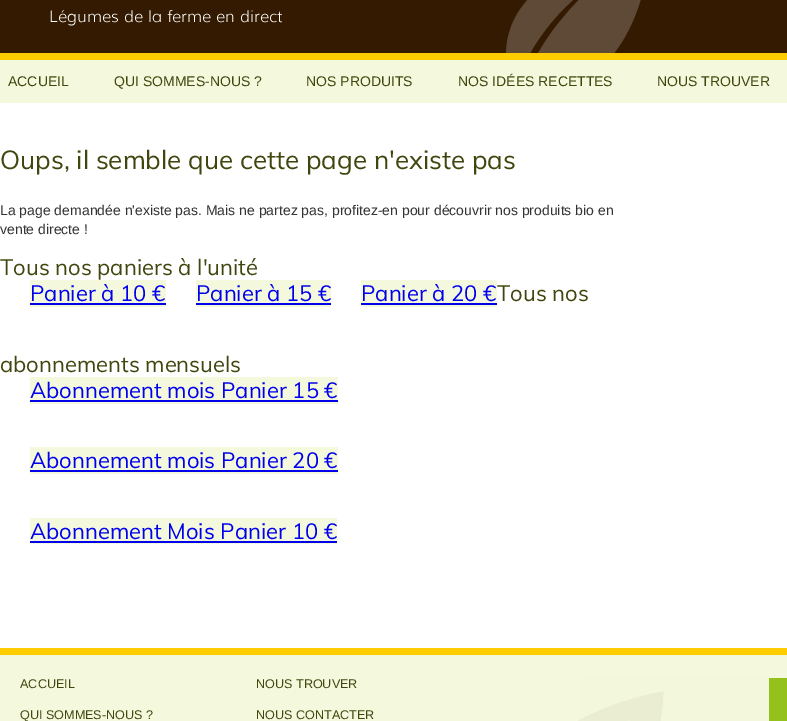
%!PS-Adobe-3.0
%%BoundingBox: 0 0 787 721
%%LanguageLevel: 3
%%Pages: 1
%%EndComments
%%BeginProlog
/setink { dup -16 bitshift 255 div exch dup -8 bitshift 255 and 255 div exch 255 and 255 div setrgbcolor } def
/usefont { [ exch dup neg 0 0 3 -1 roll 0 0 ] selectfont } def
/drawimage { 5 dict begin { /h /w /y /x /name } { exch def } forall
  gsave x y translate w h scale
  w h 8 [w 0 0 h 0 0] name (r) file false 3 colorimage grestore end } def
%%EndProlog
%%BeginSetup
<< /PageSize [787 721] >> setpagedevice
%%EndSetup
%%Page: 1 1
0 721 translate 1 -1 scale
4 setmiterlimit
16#FFFFFF setink
0 0 787 721 rectfill
(img1.raw) 0 0 787 103 drawimage
(img2.raw) 506 0 135 53 drawimage
(img3.raw) 0 0 370 53 drawimage
/LiberationSans-Regular 14 usefont
16#41460E setink
[
    [(ACCUEIL) 8 86]
    [(QUI SOMMES-NOUS ?) 114 86]
    [(NOS PRODUITS) 306 86]
    [(NOS IDÉES RECETTES) 458 86]
    [(NOUS TROUVER) 657 86]
] { aload pop moveto show } forall
/Muli-Regular 26 usefont
0 169 moveto (Oups, il semble que cette page n'existe pas) show
/LiberationSans-Regular 14 usefont
16#333333 setink
0 215 moveto (La page demandée n'existe pas. Mais ne partez pas, profitez-en pour découvrir nos produits bio en) show
0 234 moveto (vente directe !) show
/Muli-Regular 22 usefont
16#41460E setink
0 275 moveto (Tous nos paniers à l'unité) show
16#F4F8DC setink
30 280 136 27 rectfill
16#0000EE setink
30 301 moveto (Panier à 10 €) show
30 303 136 2 rectfill
16#F4F8DC setink
196 280 135 27 rectfill
16#0000EE setink
196 301 moveto (Panier à 15 €) show
196 303 135 2 rectfill
16#F4F8DC setink
361 280 136 27 rectfill
16#0000EE setink
361 301 moveto (Panier à 20 €) show
361 303 136 2 rectfill
16#41460E setink
497 301 moveto (Tous nos) show
0 372 moveto (abonnements mensuels) show
16#F4F8DC setink
30 377 308 27 rectfill
16#0000EE setink
30 398 moveto (Abonnement mois Panier 15 €) show
30 400 308 2 rectfill
16#F4F8DC setink
30 447 308 27 rectfill
16#0000EE setink
30 468 moveto (Abonnement mois Panier 20 €) show
30 470 308 2 rectfill
16#F4F8DC setink
30 518 307 26 rectfill
16#0000EE setink
30 539 moveto (Abonnement Mois Panier 10 €) show
30 541 307 2 rectfill
16#F4F8DC setink
0 655 787 66 rectfill
(img4.raw) 578 678 209 43 drawimage
16#FFCC00 setink
0 648 787 7 rectfill
/LiberationSans-Regular 12.6 usefont
16#41460E setink
[
    [(ACCUEIL) 20 688]
    [(NOUS TROUVER) 256 688]
    [(QUI SOMMES-NOUS ?) 20 719]
    [(NOUS CONTACTER) 256 719]
] { aload pop moveto show } forall
showpage
%%EOF
